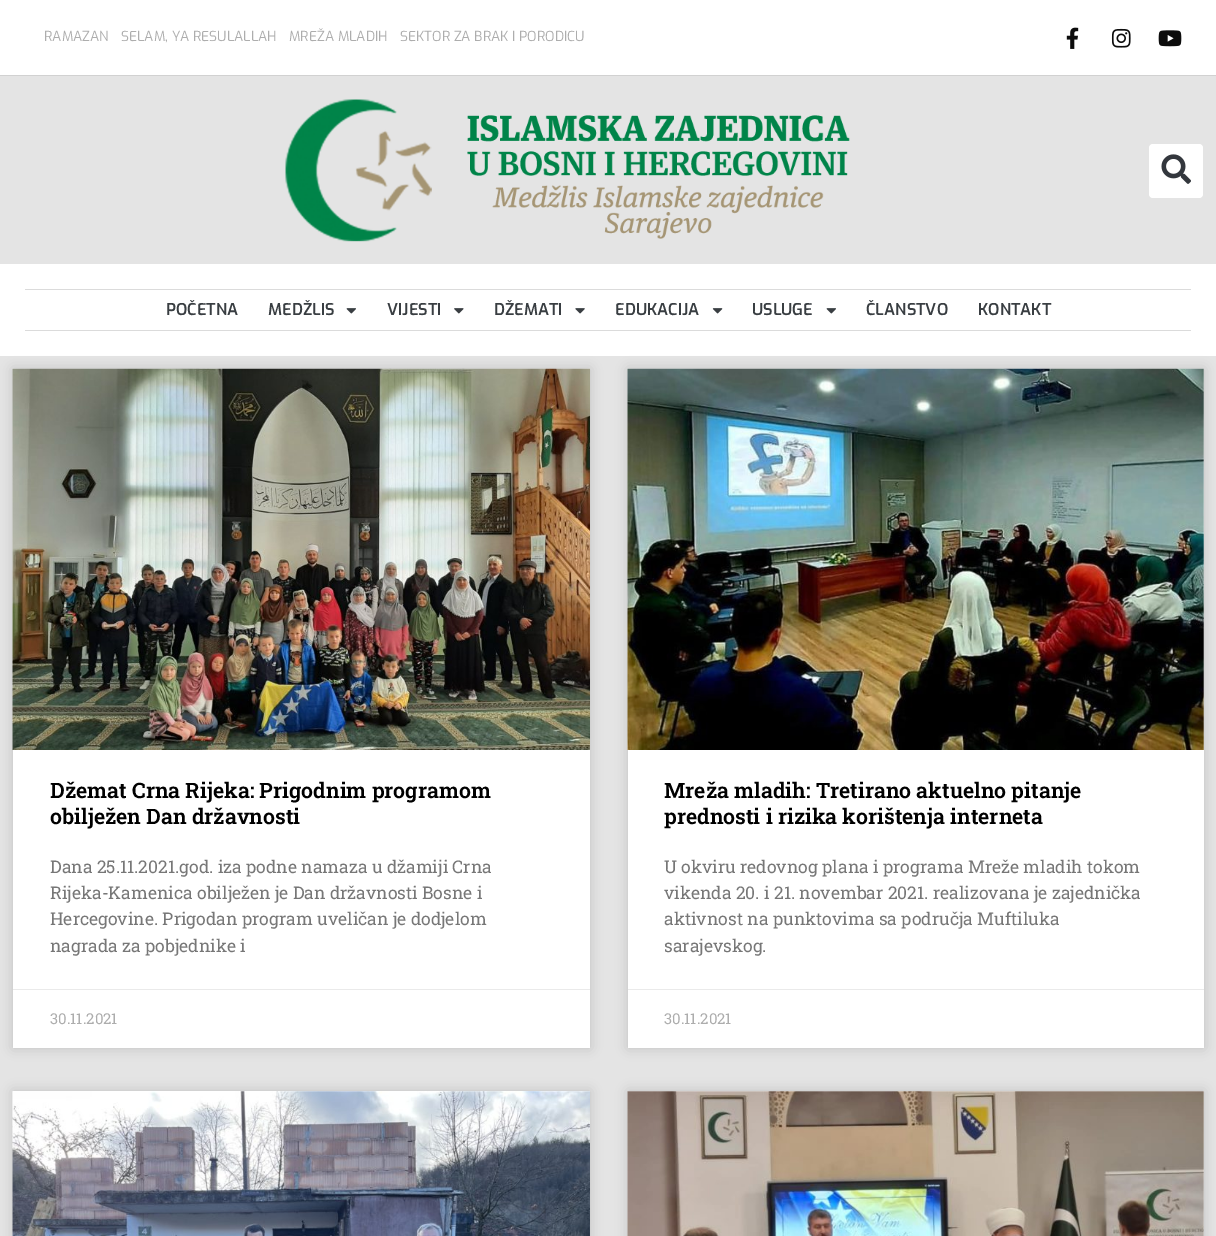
%!PS-Adobe-3.0
%%BoundingBox: 0 0 1216 1236
%%LanguageLevel: 3
%%Pages: 1
%%EndComments
%%BeginProlog
/setink { dup -16 bitshift 255 div exch dup -8 bitshift 255 and 255 div exch 255 and 255 div setrgbcolor } def
/usefont { [ exch dup neg 0 0 3 -1 roll 0 0 ] selectfont } def
/setalpha { dup .setfillconstantalpha .setstrokeconstantalpha } def
/rrect { 5 dict begin { /r /h /w /y /x } { exch def } forall
  x r add y moveto x w add y 2 copy h add r arct x w add y h add x 1 index r arct
  x y h add x y r arct x y 2 copy exch w add exch r arct closepath end } def
/softshadow { 12 dict begin { /a /b /q /h /w /y /x } { exch def } forall gsave /was 0 def
  9 -2 -9 { dup b mul 4 div /e exch def 1 sub .425 mul 2.718 exch exp 1 add a .99 .min exch div /now exch def
    1 1 now sub 1 was sub div sub setalpha /was now def
    w h .min e 2 mul add 0 gt { x e sub y e sub w e 2 mul add h e 2 mul add
      q e add b .6 mul add w h .min 2 div e add .min 0 .max rrect fill } if } for grestore end } def
/drawimage { 5 dict begin { /h /w /y /x /name } { exch def } forall
  gsave x y translate w h scale
  w h 8 [w 0 0 h 0 0] name (r) file false 3 colorimage grestore end } def
%%EndProlog
%%BeginSetup
<< /PageSize [1216 1236] /PageUsesTransparency true >> setpagedevice
%%EndSetup
%%Page: 1 1
0 .pushpdf14devicefilter
0 1236 translate 1 -1 scale
4 setmiterlimit
16#E4E4E4 setink
0 0 1216 1236 rectfill
16#FFFFFF setink
0 0 1216 75 rectfill
16#D1D1D1 setink
0 75 1216 1 rectfill
/Exo-Regular 13.75 usefont
16#ADADAD setink
[
    [(RAMAZAN) 44 41]
    [(SELAM, YA RESULALLAH) 121 41]
    [(MREŽA MLADIH) 289 41]
    [(SEKTOR ZA BRAK I PORODICU) 400 41]
] { aload pop moveto show } forall
(img1.raw) 1066 27 13 22 drawimage
(img2.raw) 1111 28 20 20 drawimage
(img3.raw) 1158 30 24 17 drawimage
(img4.raw) 285 99 565 143 drawimage
16#FFFFFF setink
1149 144 54 54 4 rrect fill
(img5.raw) 1161 154 30 30 drawimage
[
    [0 264 1216 92 16#FFFFFF]
    [25 289 1166 1 16#DBDBDB]
    [25 330 1166 1 16#DBDBDB]
] { aload pop setink rectfill } forall
/Exo-SemiBold 16.25 usefont
16#393E42 setink
166 315 moveto (POČETNA) show
268 315 moveto (MEDŽLIS) show
(img6.raw) 346 308 10 6 drawimage
387 315 moveto (VIJESTI) show
(img7.raw) 454 308 10 6 drawimage
494 315 moveto (DŽEMATI) show
(img8.raw) 575 308 10 6 drawimage
615 315 moveto (EDUKACIJA) show
(img9.raw) 712 308 11 6 drawimage
752 315 moveto (USLUGE) show
(img6.raw) 826 308 10 6 drawimage
866 315 moveto (ČLANSTVO) show
978 315 moveto (KONTAKT) show
16#000000 setink
13 369 577 679 0 6 0.15 softshadow
16#FFFFFF setink
13 750 577 298 rectfill
(img10.raw) 12 368 578 382 drawimage
/RobotoSlab-SemiBold 21.25 usefont
16#000000 setink
50 798 moveto (Džemat Crna Rijeka: Prigodnim programom) show
50 824 moveto (obilježen Dan državnosti) show
/RobotoSlab-Regular 17.5 usefont
16#777777 setink
[
    [(Dana 25.11.2021.god. iza podne namaza u džamiji Crna) 50 873]
    [(Rijeka-Kamenica obilježen je Dan državnosti Bosne i) 50 899]
    [(Hercegovine. Prigodan program uveličan je dodjelom) 50 925]
    [(nagrada za pobjednike i) 50 952]
] { aload pop moveto show } forall
16#EAEAEA setink
13 989 577 1 rectfill
/RobotoSlab-Regular 15 usefont
16#ADADAD setink
50 1024 moveto (30.11.2021) show
16#000000 setink
628 369 576 679 0 6 0.15 softshadow
16#FFFFFF setink
628 369 576 679 rectfill
(img11.raw) 627 368 577 382 drawimage
/RobotoSlab-SemiBold 21.25 usefont
16#000000 setink
664 798 moveto (Mreža mladih: Tretirano aktuelno pitanje) show
664 824 moveto (prednosti i rizika korištenja interneta) show
/RobotoSlab-Regular 17.5 usefont
16#777777 setink
[
    [(U okviru redovnog plana i programa Mreže mladih tokom) 664 873]
    [(vikenda 20. i 21. novembar 2021. realizovana je zajednička) 664 899]
    [(aktivnost na punktovima sa područja Muftiluka) 664 925]
    [(sarajevskog.) 664 952]
] { aload pop moveto show } forall
16#EAEAEA setink
628 989 576 1 rectfill
/RobotoSlab-Regular 15 usefont
16#ADADAD setink
664 1024 moveto (30.11.2021) show
16#000000 setink
13 1091 577 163 0 6 0.15 softshadow
(img12.raw) 12 1091 578 145 drawimage
628 1091 576 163 0 6 0.15 softshadow
16#FFFFFF setink
628 1091 576 145 rectfill
(img13.raw) 627 1091 577 145 drawimage
.poppdf14devicefilter showpage
%%EOF
